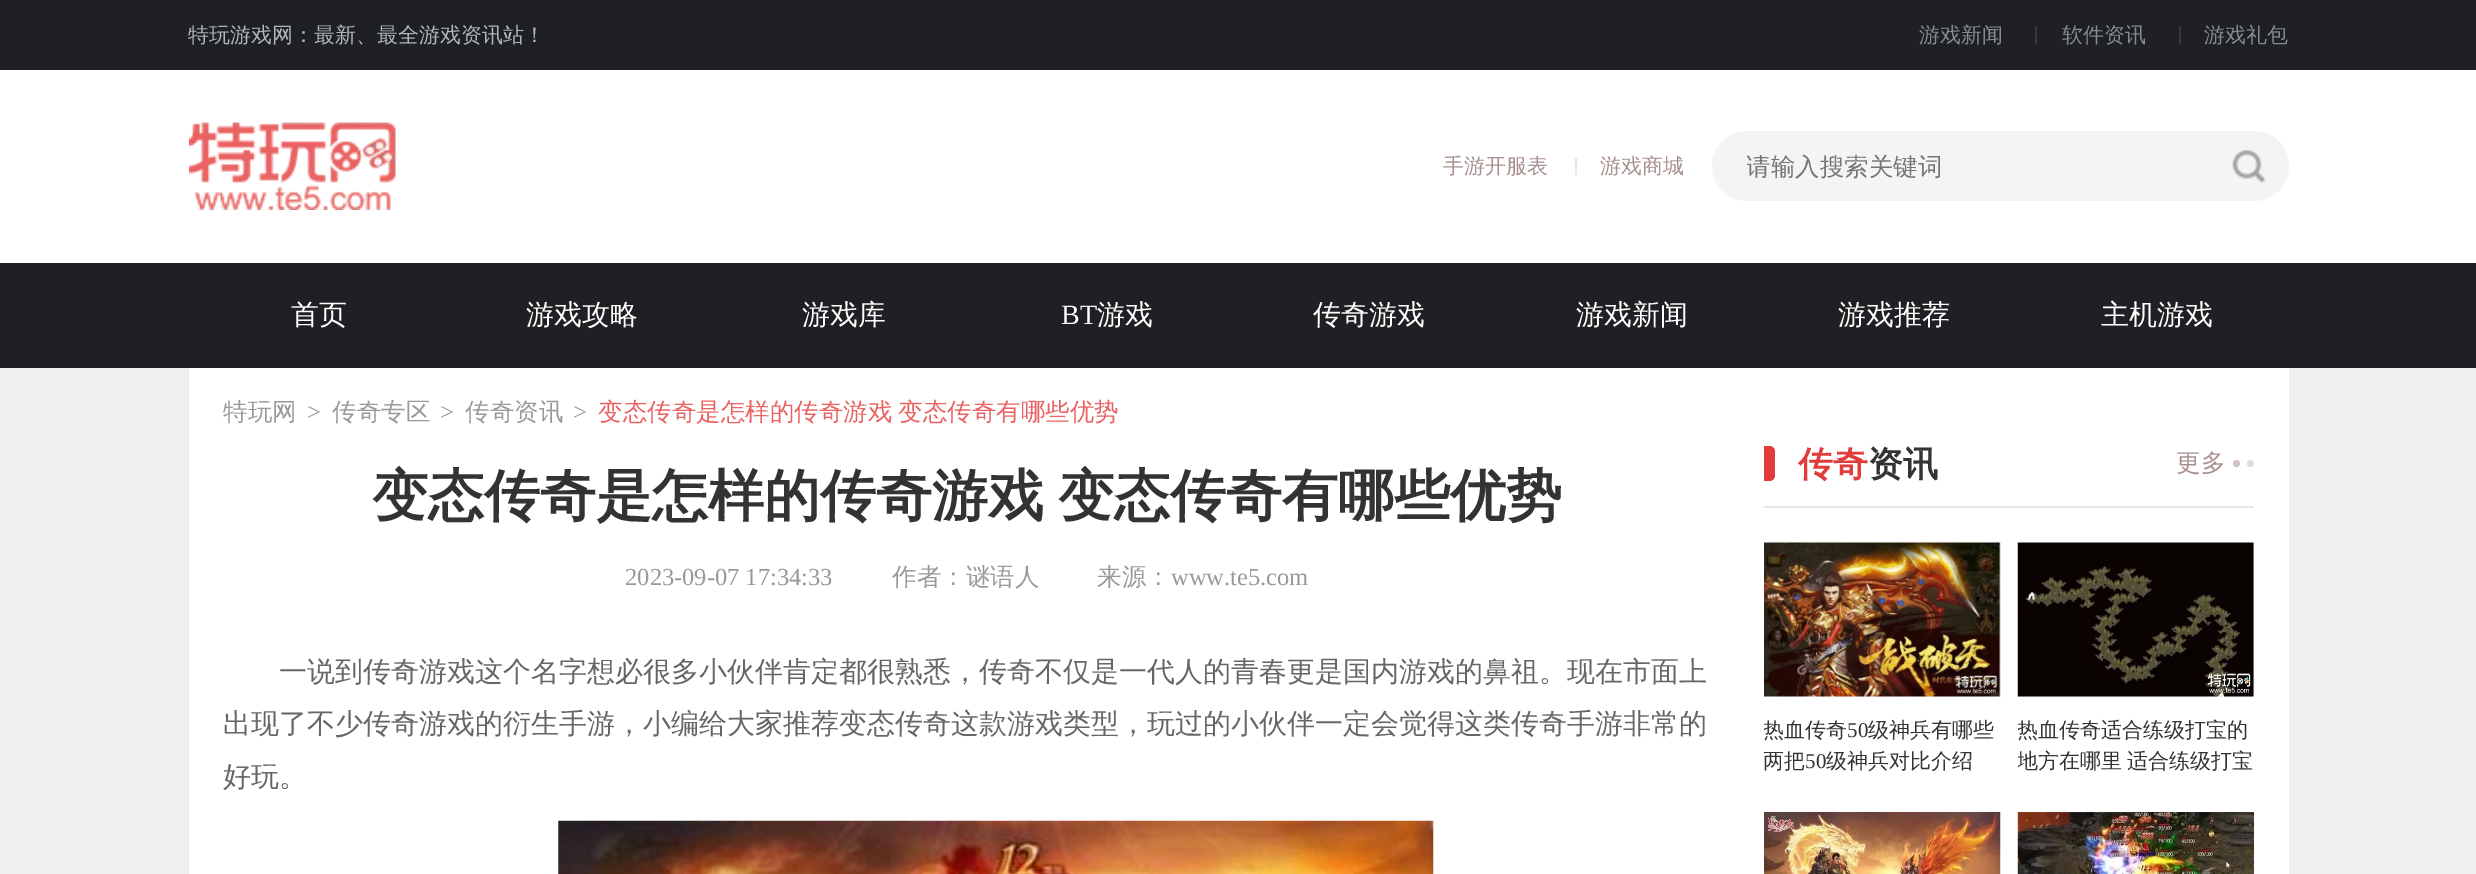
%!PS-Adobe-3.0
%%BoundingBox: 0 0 2476 874
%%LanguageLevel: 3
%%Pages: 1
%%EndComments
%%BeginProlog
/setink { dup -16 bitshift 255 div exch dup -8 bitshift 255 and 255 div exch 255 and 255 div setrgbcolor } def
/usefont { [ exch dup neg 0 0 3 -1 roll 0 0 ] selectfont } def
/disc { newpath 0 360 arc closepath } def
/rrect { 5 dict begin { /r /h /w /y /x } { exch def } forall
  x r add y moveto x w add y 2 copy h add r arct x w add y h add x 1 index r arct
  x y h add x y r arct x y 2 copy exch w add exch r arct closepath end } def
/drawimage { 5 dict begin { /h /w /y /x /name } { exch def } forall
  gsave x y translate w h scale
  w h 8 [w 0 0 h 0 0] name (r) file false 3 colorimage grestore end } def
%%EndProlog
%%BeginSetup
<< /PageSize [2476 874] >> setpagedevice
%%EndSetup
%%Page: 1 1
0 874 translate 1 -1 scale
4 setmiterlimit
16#EFEFEF setink
0 0 2476 874 rectfill
16#1E2023 setink
0 0 2476 70 rectfill
/WenQuanYiZenHei-Medium 21 usefont
16#B1B7BE setink
188 42 moveto (特玩游戏网：最新、最全游戏资讯站！) show
16#868B91 setink
1919 42 moveto (游戏新闻) show
16#37393D setink
2035 26 2 18 rectfill
16#868B91 setink
2062 42 moveto (软件资讯) show
16#37393D setink
2179 26 2 18 rectfill
16#868B91 setink
2204 42 moveto (游戏礼包) show
16#FFFFFF setink
0 70 2476 193 rectfill
(img1.raw) 189 122 207 88 drawimage
16#A78F8F setink
1443 173 moveto (手游开服表) show
16#E5E5E5 setink
1575 158 2 17 rectfill
16#A78F8F setink
1600 173 moveto (游戏商城) show
16#F4F4F4 setink
1712 131 577 70 35 rrect fill
gsave
1747 152 455 32 rectclip
/WenQuanYiZenHei-Medium 24.5 usefont
16#757575 setink
1746 175 moveto (请输入搜索关键词) show
grestore
(img2.raw) 2232 150 33 33 drawimage
16#1E2023 setink
0 263 2476 105 rectfill
/WenQuanYiZenHei-Medium 28 usefont
16#FFFFFF setink
[
    [(首页) 291 324]
    [(游戏攻略) 526 324]
    [(游戏库) 802 324]
] { aload pop moveto show } forall
/LiberationSerif-Regular 28 usefont
1061 324 moveto (BT) show
/WenQuanYiZenHei-Medium 28 usefont
[
    [(游戏) 1097 324]
    [(传奇游戏) 1313 324]
    [(游戏新闻) 1576 324]
    [(游戏推荐) 1838 324]
    [(主机游戏) 2101 324]
] { aload pop moveto show } forall
189 368 2100 506 rectfill
/WenQuanYiZenHei-Medium 24.5 usefont
16#999999 setink
223 420 moveto (特玩网) show
/LiberationSerif-Regular 24.5 usefont
307 420 moveto (>) show
/WenQuanYiZenHei-Medium 24.5 usefont
332 420 moveto (传奇专区) show
/LiberationSerif-Regular 24.5 usefont
440 420 moveto (>) show
/WenQuanYiZenHei-Medium 24.5 usefont
465 420 moveto (传奇资讯) show
/LiberationSerif-Regular 24.5 usefont
573 420 moveto (>) show
/WenQuanYiZenHei-Medium 24.5 usefont
16#EA6161 setink
598 420 moveto -1 0 32 (变态传奇是怎样的传奇游戏 变态传奇有哪些优势) widthshow
/WenQuanYiZenHei-Bold 56 usefont
16#333333 setink
372 515 moveto -3 0 32 (变态传奇是怎样的传奇游戏 变态传奇有哪些优势) widthshow
/LiberationSerif-Regular 24.5 usefont
16#999999 setink
625 585 moveto (2023-09-07 17:34:33) show
/WenQuanYiZenHei-Medium 24.5 usefont
892 585 moveto (作者：谜语人) show
1097 585 moveto (来源：) show
/LiberationSerif-Regular 24.5 usefont
1171 585 moveto (www.te5.com) show
/WenQuanYiZenHei-Medium 28 usefont
16#666666 setink
[
    [(一说到传奇游戏这个名字想必很多小伙伴肯定都很熟悉，传奇不仅是一代人的青春更是国内游戏的鼻祖。现在市面上) 279 681]
    [(出现了不少传奇游戏的衍生手游，小编给大家推荐变态传奇这款游戏类型，玩过的小伙伴一定会觉得这类传奇手游非常的) 223 733]
    [(好玩。) 223 786]
] { aload pop moveto show } forall
(img3.raw) 558 820 876 54 drawimage
16#E5E5E5 setink
1764 506 490 2 rectfill
16#E13B3B setink
1764 446 moveto 1769.5 446 lineto 1772.5 446 1775 448.5 1775 451.5 curveto 1775 475.5 lineto 1775 478.5 1772.5 481 1769.5 481 curveto 1764 481 lineto closepath fill
/WenQuanYiZenHei-Bold 35 usefont
1798 476 moveto (传奇) show
16#333333 setink
1868 476 moveto (资讯) show
/WenQuanYiZenHei-Medium 24.5 usefont
16#A78F8F setink
2176 471 moveto (更多) show
16#D4C3C3 setink
2236.5 463.5 3.5 disc fill
16#DDDDDD setink
2250.5 463.5 3.5 disc fill
(img4.raw) 1764 542 237 155 drawimage
gsave
1764 714 236 63 rectclip
/WenQuanYiZenHei-Medium 21 usefont
16#333333 setink
1763 737 moveto (热血传奇) show
grestore
/LiberationSerif-Regular 21 usefont
16#333333 setink
1847 737 moveto (50) show
/WenQuanYiZenHei-Medium 21 usefont
1868 737 moveto (级神兵有哪些) show
gsave
1764 714 236 63 rectclip
1763 768 moveto (两把) show
grestore
/LiberationSerif-Regular 21 usefont
1805 768 moveto (50) show
/WenQuanYiZenHei-Medium 21 usefont
1826 768 moveto (级神兵对比介绍) show
(img5.raw) 2017 542 237 155 drawimage
gsave
2018 714 236 63 rectclip
2017 737 moveto (热血传奇适合练级打宝的) show
2017 768 moveto -1 0 32 (地方在哪里 适合练级打宝) widthshow
grestore
(img6.raw) 1764 812 237 62 drawimage
(img7.raw) 2017 812 237 62 drawimage
showpage
%%EOF
